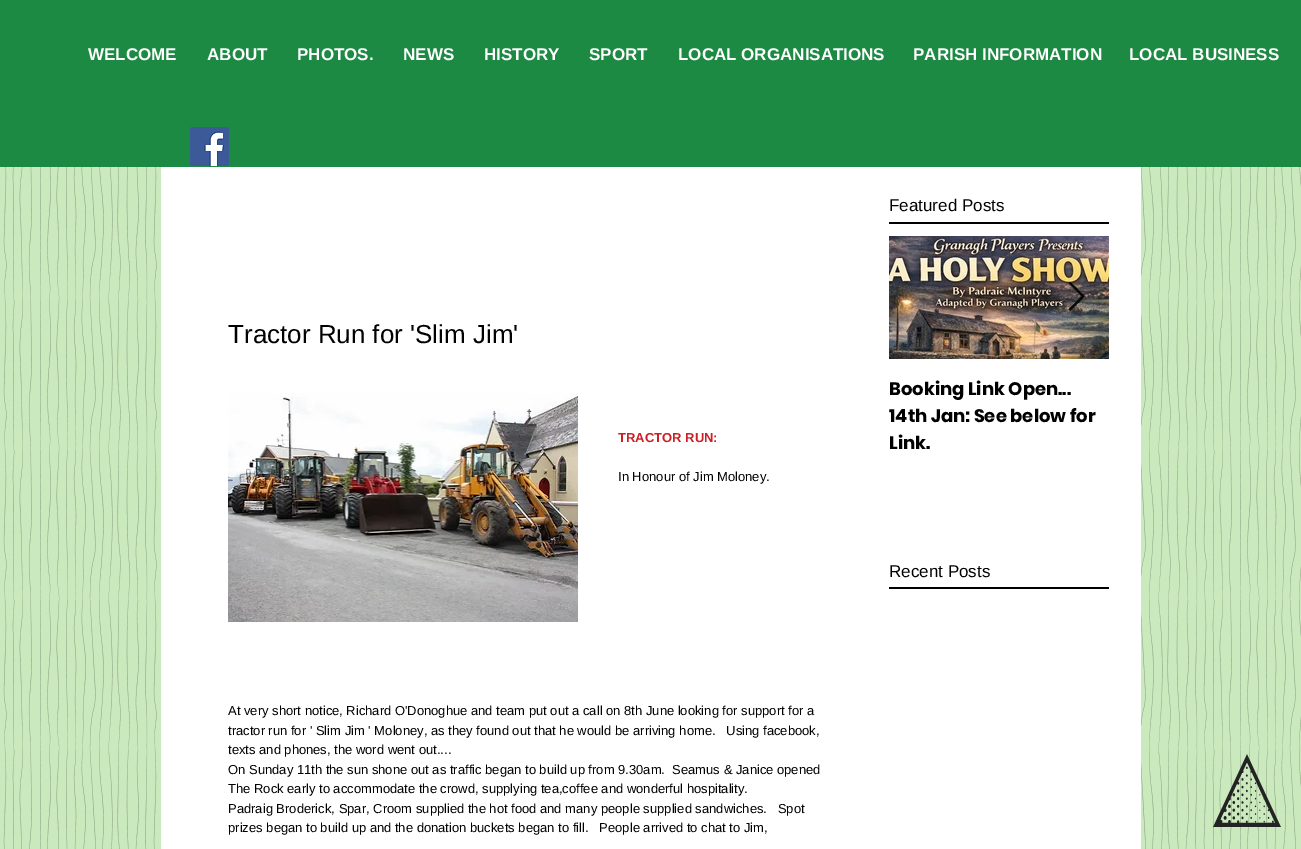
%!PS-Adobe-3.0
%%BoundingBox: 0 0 1301 849
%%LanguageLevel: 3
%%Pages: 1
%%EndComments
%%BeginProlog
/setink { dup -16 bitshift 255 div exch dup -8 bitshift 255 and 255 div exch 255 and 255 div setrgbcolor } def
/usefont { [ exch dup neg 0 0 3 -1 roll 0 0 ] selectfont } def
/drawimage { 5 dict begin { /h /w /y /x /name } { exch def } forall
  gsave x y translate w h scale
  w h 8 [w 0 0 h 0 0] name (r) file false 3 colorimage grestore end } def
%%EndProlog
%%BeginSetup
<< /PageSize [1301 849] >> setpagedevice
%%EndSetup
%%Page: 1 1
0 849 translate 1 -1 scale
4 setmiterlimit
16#CAE9BD setink
0 0 1301 849 rectfill
16#1C8A43 setink
0 0 1301 167 rectfill
/LiberationSans-Bold 17 usefont
16#FFFFFF setink
[
    [(WELCOME) 88 60]
    [(ABOUT) 207 60]
    [(PHOTOS.) 297 60]
    [(NEWS) 403 60]
    [(HISTORY) 484 60]
    [(SPORT) 589 60]
    [(LOCAL ORGANISATIONS) 678 60]
    [(PARISH INFORMATION) 913 60]
    [(LOCAL BUSINESS) 1129 60]
] { aload pop moveto show } forall
(img1.raw) 190 127 39 39 drawimage
(img6.raw) 3 167 1298 682 drawimage
161 167 980 682 rectfill
/LiberationSans-Regular 17 usefont
16#000000 setink
889 211 moveto (Featured Posts) show
889 222 220 2 rectfill
/LiberationSans-Regular 26 usefont
228 343 moveto (Tractor Run for 'Slim Jim') show
(img2.raw) 228 393 350 229 drawimage
/LiberationSans-Bold 13 usefont
16#CB2026 setink
618 442 moveto (TRACTOR RUN:) show
/LiberationSans-Regular 13 usefont
16#000000 setink
[
    [(In Honour of Jim Moloney.) 618 481]
    [(At very short notice, Richard O'Donoghue and team put out a call on 8th June looking for support for a) 228 715]
    [(tractor run for ' Slim Jim ' Moloney, as they found out that he would be arriving home.   Using facebook,) 228 735]
    [(texts and phones, the word went out....) 228 754]
    [(On Sunday 11th the sun shone out as traffic began to build up from 9.30am.  Seamus & Janice opened) 228 774]
    [(The Rock early to accommodate the crowd, supplying tea,coffee and wonderful hospitality.) 228 793]
    [(Padraig Broderick, Spar, Croom supplied the hot food and many people supplied sandwiches.   Spot) 228 813]
    [(prizes began to build up and the donation buckets began to fill.   People arrived to chat to Jim,) 228 832]
] { aload pop moveto show } forall
(img4.raw) 889 236 220 123 drawimage
(img3.raw) 1068 282 17 29 drawimage
/Poppins-Bold 18 usefont
889 395 moveto (Booking Link Open...) show
gsave
889 375 220 81 rectclip
889 422 moveto (14th Jan: See below for) show
grestore
889 449 moveto (Link.) show
/LiberationSans-Regular 17 usefont
889 577 moveto (Recent Posts) show
889 587 220 2 rectfill
(img5.raw) 1213 754 68 73 drawimage
showpage
%%EOF
